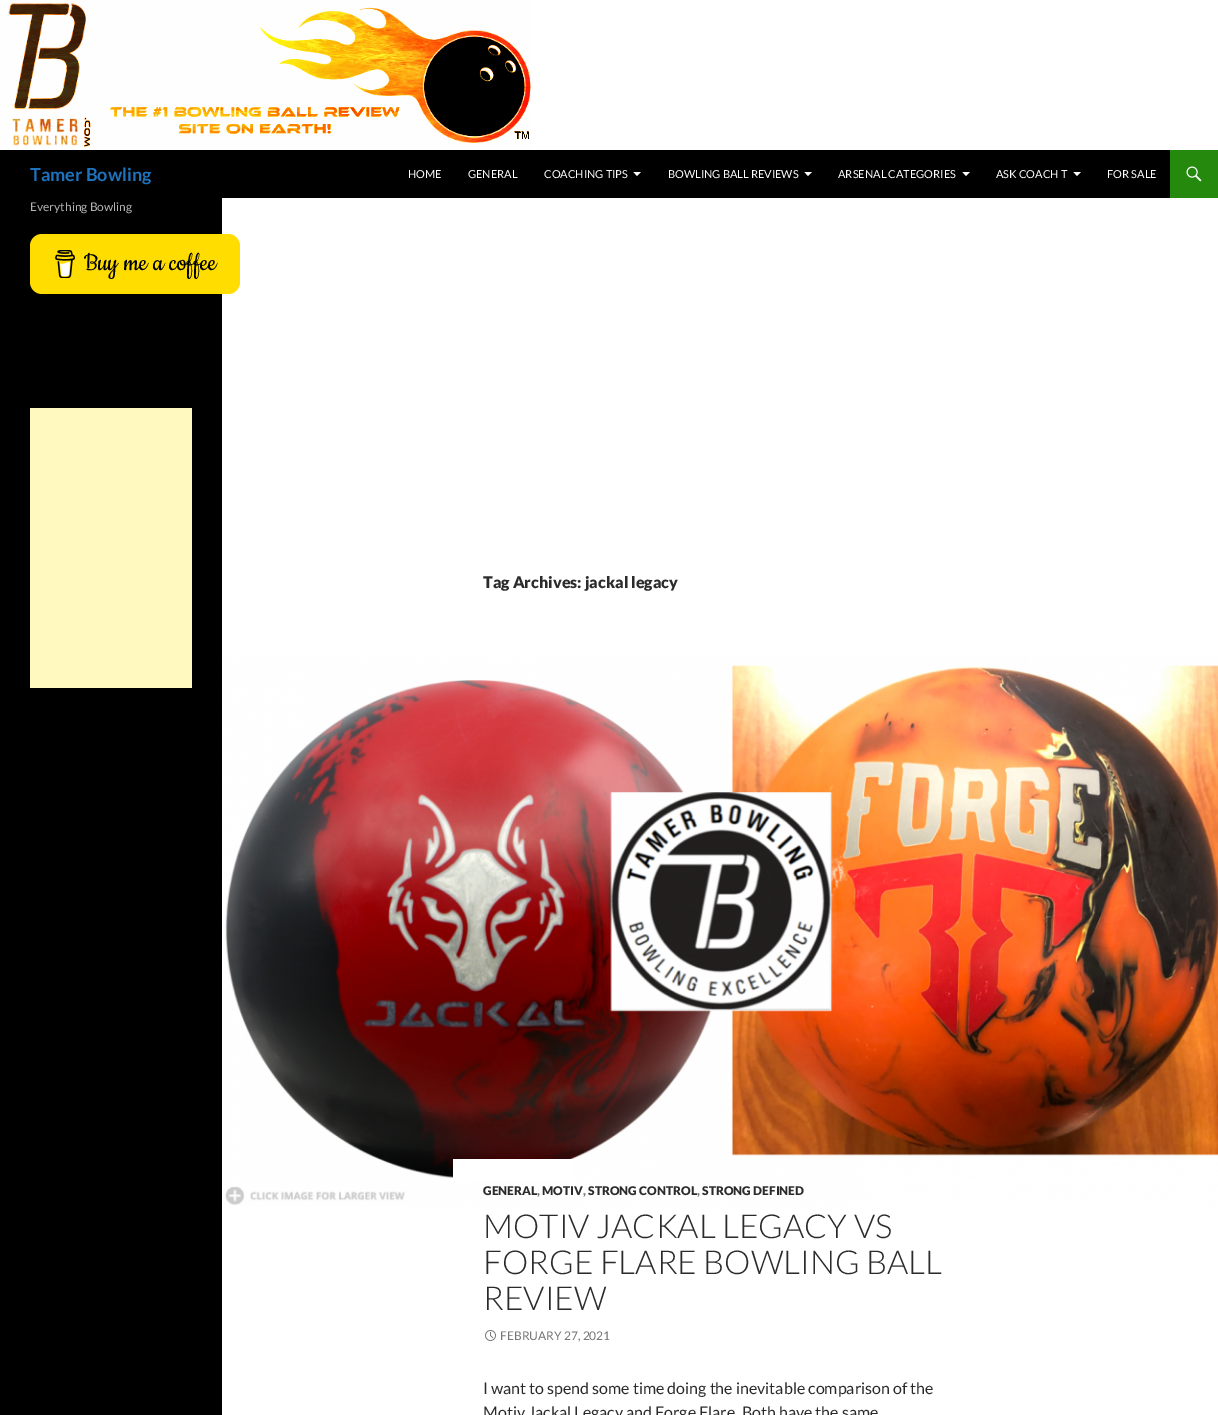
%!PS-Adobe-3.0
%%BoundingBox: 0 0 1218 1415
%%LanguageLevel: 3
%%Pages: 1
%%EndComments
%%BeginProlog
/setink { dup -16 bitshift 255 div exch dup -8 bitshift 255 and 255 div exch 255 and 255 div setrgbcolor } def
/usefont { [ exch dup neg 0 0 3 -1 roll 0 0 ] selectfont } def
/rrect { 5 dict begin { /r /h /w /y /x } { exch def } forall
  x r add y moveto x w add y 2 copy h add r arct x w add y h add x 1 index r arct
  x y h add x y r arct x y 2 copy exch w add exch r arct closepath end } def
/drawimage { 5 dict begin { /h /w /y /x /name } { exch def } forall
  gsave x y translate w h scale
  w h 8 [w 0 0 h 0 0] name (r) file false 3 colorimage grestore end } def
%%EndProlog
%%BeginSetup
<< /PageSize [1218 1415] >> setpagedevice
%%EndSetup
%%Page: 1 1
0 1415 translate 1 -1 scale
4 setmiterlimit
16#FFFFFF setink
0 0 1218 1415 rectfill
(img1.raw) 0 0 531 150 drawimage
16#000000 setink
0 150 1170 48 rectfill
/Lato-Bold 18 usefont
16#1E73BE setink
30 181 moveto (Tamer Bowling) show
/Lato-Regular 11 usefont
16#FFFFFF setink
[
    [(HOME) 408 178]
    [(GENERAL) 468 178]
    [(COACHING TIPS) 544 178]
] { aload pop moveto show } forall
633.5 172 moveto 637 176 lineto 641 172 lineto closepath fill
668 178 moveto (BOWLING BALL REVIEWS) show
804.5 172 moveto 808 176 lineto 812 172 lineto closepath fill
838 178 moveto (ARSENAL CATEGORIES) show
962.5 172 moveto 966 176 lineto 970 172 lineto closepath fill
996 178 moveto (ASK COACH T) show
1073.5 172 moveto 1077 176 lineto 1081 172 lineto closepath fill
1107 178 moveto (FOR SALE) show
16#24890D setink
1170 150 48 48 rectfill
(img2.raw) 1186 166 16 16 drawimage
16#000000 setink
0 198 222 1217 rectfill
/Lato-Regular 12 usefont
16#B3B3B3 setink
30 211 moveto (Everything Bowling) show
16#FFDD00 setink
30 234 210 60 12 rrect fill
(img3.raw) 55 250 20 28 drawimage
/Cookie-Regular 28 usefont
16#000000 setink
84 270 moveto (Buy me a coffee) show
16#FFF9C0 setink
30 408 162 280 rectfill
/Lato-Black 16 usefont
16#2B2B2B setink
483 588 moveto (Tag Archives: jackal legacy) show
(img4.raw) 222 654 996 553 drawimage
16#FFFFFF setink
453 1159 120 21 rectfill
/Lato-Black 12 usefont
16#2B2B2B setink
483 1195 moveto (GENERAL) show
16#767676 setink
537 1195 moveto (,) show
16#2B2B2B setink
542 1195 moveto (MOTIV) show
16#767676 setink
583 1195 moveto (,) show
16#2B2B2B setink
588 1195 moveto (STRONG CONTROL) show
16#767676 setink
697 1195 moveto (,) show
16#2B2B2B setink
702 1195 moveto (STRONG DEFINED) show
/Lato-Light 33 usefont
[
    [(MOTIV JACKAL LEGACY VS) 483 1238]
    [(FORGE FLARE BOWLING BALL) 483 1274]
    [(REVIEW) 483 1310]
] { aload pop moveto show } forall
(img5.raw) 485 1330 11 11 drawimage
/Lato-Regular 12 usefont
16#767676 setink
500 1340 moveto (FEBRUARY 27, 2021) show
/Lato-Regular 16 usefont
16#2B2B2B setink
483 1394 moveto (I want to spend some time doing the inevitable comparison of the) show
483 1418 moveto (Motiv Jackal Legacy and Forge Flare. Both have the same) show
showpage
%%EOF
